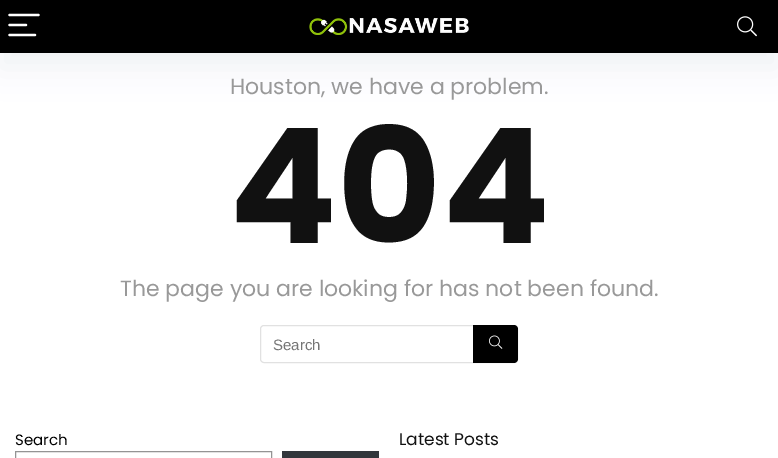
%!PS-Adobe-3.0
%%BoundingBox: 0 0 778 458
%%LanguageLevel: 3
%%Pages: 1
%%EndComments
%%BeginProlog
/setink { dup -16 bitshift 255 div exch dup -8 bitshift 255 and 255 div exch 255 and 255 div setrgbcolor } def
/usefont { [ exch dup neg 0 0 3 -1 roll 0 0 ] selectfont } def
/setalpha { dup .setfillconstantalpha .setstrokeconstantalpha } def
/rrect { 5 dict begin { /r /h /w /y /x } { exch def } forall
  x r add y moveto x w add y 2 copy h add r arct x w add y h add x 1 index r arct
  x y h add x y r arct x y 2 copy exch w add exch r arct closepath end } def
/softshadow { 12 dict begin { /a /b /q /h /w /y /x } { exch def } forall gsave /was 0 def
  9 -2 -9 { dup b mul 4 div /e exch def 1 sub .425 mul 2.718 exch exp 1 add a .99 .min exch div /now exch def
    1 1 now sub 1 was sub div sub setalpha /was now def
    w h .min e 2 mul add 0 gt { x e sub y e sub w e 2 mul add h e 2 mul add
      q e add b .6 mul add w h .min 2 div e add .min 0 .max rrect fill } if } for grestore end } def
/drawimage { 5 dict begin { /h /w /y /x /name } { exch def } forall
  gsave x y translate w h scale
  w h 8 [w 0 0 h 0 0] name (r) file false 3 colorimage grestore end } def
%%EndProlog
%%BeginSetup
<< /PageSize [778 458] /PageUsesTransparency true >> setpagedevice
%%EndSetup
%%Page: 1 1
0 .pushpdf14devicefilter
0 458 translate 1 -1 scale
4 setmiterlimit
16#FFFFFF setink
0 0 778 458 rectfill
16#777B92 setink
0 15 778 53 0 15 0.1 softshadow
16#000000 setink
0 0 778 53 rectfill
16#FFFFFF setink
2.2 setlinewidth
1 setlinecap
9.5 15 moveto 38.5 15 lineto 9.5 25 moveto 26 25 lineto 9.5 35 moveto 35 35 lineto stroke
(img1.raw) 309 18 160 17 drawimage
(img2.raw) 737 16 20 21 drawimage
/Poppins-Regular 22 usefont
16#999999 setink
230 94 moveto (Houston, we have a problem.) show
/Poppins-Bold 160 usefont
16#111111 setink
229 243 moveto (404) show
/Poppins-Regular 22 usefont
16#999999 setink
120 296 moveto (The page you are looking for has not been found.) show
16#E1E1E1 setink
1 setlinewidth
0 setlinecap
260.5 325.5 257 37 3.5 rrect stroke
/LiberationSans-Regular 15 usefont
16#757575 setink
273 350 moveto (Search) show
16#000000 setink
473 325 moveto 514 325 lineto 516 325 518 327 518 329 curveto 518 359 lineto 518 361 516 363 514 363 curveto 473 363 lineto closepath fill
(img3.raw) 489 335 14 14 drawimage
/Poppins-Regular 15 usefont
15 445 moveto (Search) show
16#949494 setink
15.5 451.5 256 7 rectstroke
16#32373C setink
282 451 97 7 rectfill
/Poppins-Regular 17 usefont
16#111111 setink
399 445 moveto (Latest Posts) show
.poppdf14devicefilter showpage
%%EOF
